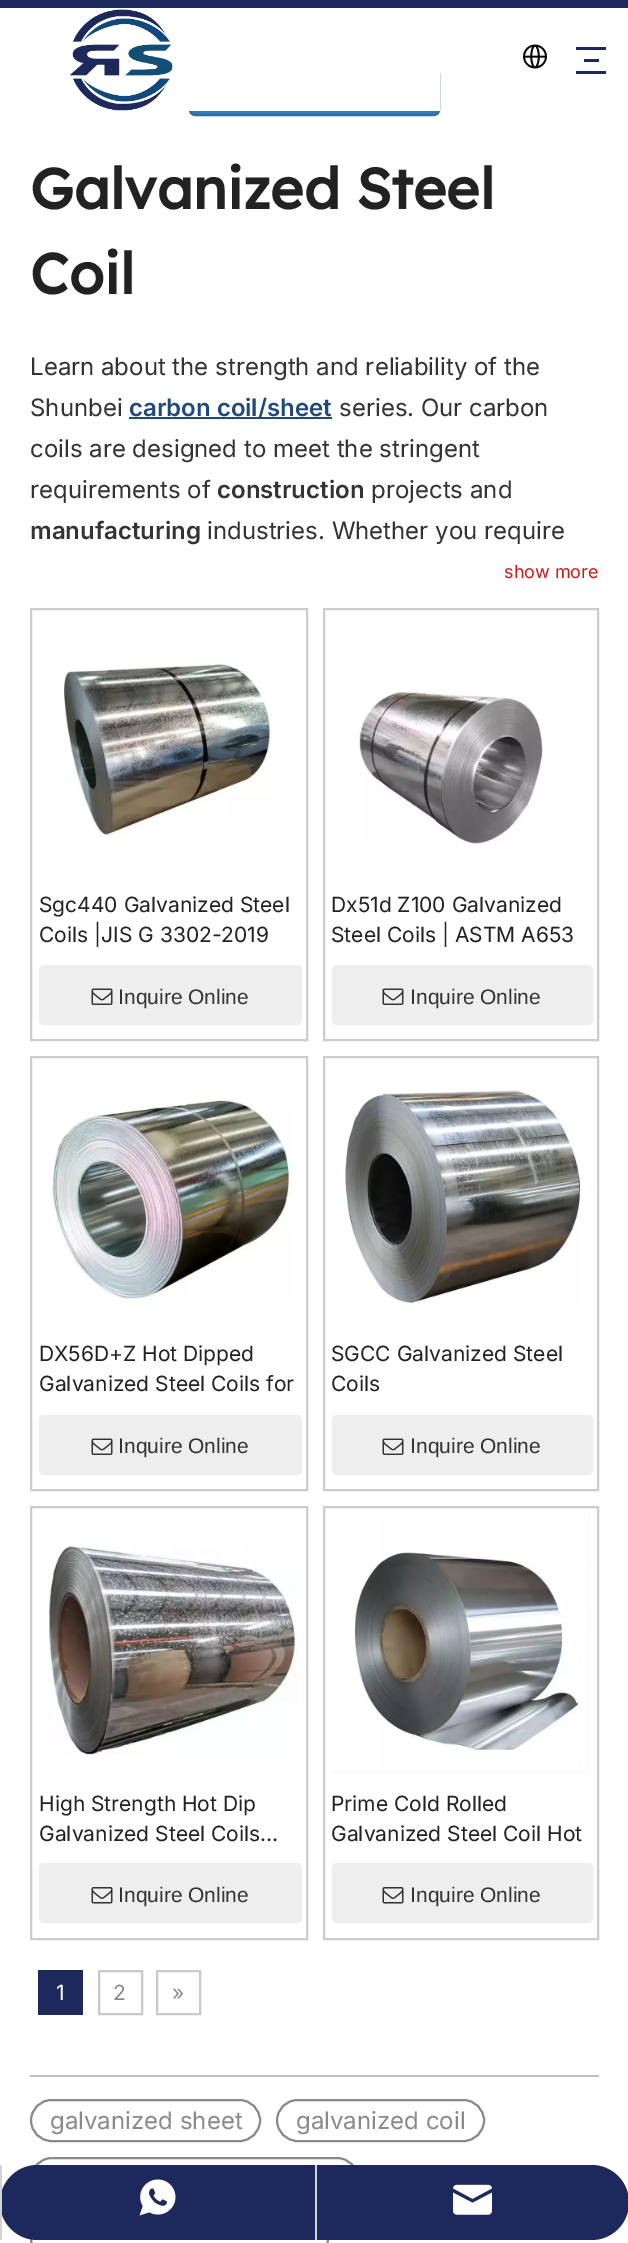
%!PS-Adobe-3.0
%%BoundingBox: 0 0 628 2243
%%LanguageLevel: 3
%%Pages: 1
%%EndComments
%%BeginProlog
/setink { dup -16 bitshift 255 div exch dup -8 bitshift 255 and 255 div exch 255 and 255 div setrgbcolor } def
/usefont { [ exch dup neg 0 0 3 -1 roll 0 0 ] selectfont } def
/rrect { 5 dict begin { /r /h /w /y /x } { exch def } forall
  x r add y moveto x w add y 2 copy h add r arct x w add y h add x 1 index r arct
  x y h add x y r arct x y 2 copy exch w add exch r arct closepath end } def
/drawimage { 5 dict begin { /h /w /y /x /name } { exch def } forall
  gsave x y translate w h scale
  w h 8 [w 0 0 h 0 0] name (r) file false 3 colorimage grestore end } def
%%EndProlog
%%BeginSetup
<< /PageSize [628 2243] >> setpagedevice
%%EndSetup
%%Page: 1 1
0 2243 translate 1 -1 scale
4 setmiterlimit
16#FFFFFF setink
0 0 628 2243 rectfill
16#337AB7 setink
190 69 249 46 5 rrect gsave fill grestore
16#2E6DA4 setink
2 setlinewidth
stroke
16#FFFFFF setink
189 68 251 43 rectfill
16#1D295C setink
0 0 628 8 rectfill
(img1.raw) 69 9 104 102 drawimage
(img2.raw) 523 44 24 25 drawimage
[
    [576 47 30 3 16#1D295C]
    [584 59 15 3 16#1D295C]
    [576 71 30 3 16#1D295C]
] { aload pop setink rectfill } forall
/LexendDeca-Bold 57 usefont
16#222222 setink
30 209 moveto (Galvanized Steel) show
30 294 moveto (Coil) show
/Inter-Regular 24 usefont
16#333333 setink
30 375 moveto (Learn about the strength and reliability of the) show
30 416 moveto (Shunbei) show
16#1F497D setink
129 417 203 2 rectfill
/Inter-SemiBold 24 usefont
129 416 moveto (carbon coil/sheet) show
/Inter-Regular 24 usefont
16#333333 setink
[
    [(series. Our carbon) 339 416]
    [(coils are designed to meet the stringent) 30 457]
    [(requirements of) 30 498]
] { aload pop moveto show } forall
/Inter-SemiBold 24 usefont
217 498 moveto (construction) show
/Inter-Regular 24 usefont
371 498 moveto (projects and) show
/Inter-SemiBold 24 usefont
30 539 moveto (manufacturing) show
/Inter-Regular 24 usefont
207 539 moveto (industries. Whether you require) show
/Inter-Regular 18 usefont
16#CD1A1A setink
504 578 moveto (show more) show
16#CCCCCC setink
31 609 276 431 rectstroke
(img3.raw) 63 664 210 173 drawimage
/Inter-Regular 21 usefont
16#222222 setink
39 912 moveto (Sgc440 Galvanized Steel) show
39 942 moveto (Coils |JIS G 3302-2019) show
16#EEEEEE setink
40 966 261 58 4 rrect gsave fill grestore
stroke
(img4.raw) 91 988 22 17 drawimage
/LiberationSans-Regular 21 usefont
16#333333 setink
118 1004 moveto (Inquire Online) show
16#CCCCCC setink
324 609 274 431 rectstroke
(img5.raw) 359 691 185 154 drawimage
/Inter-Regular 21 usefont
16#222222 setink
331 912 moveto (Dx51d Z100 Galvanized) show
331 942 moveto (Steel Coils | ASTM A653) show
16#EEEEEE setink
333 966 259 58 4 rrect gsave fill grestore
stroke
(img4.raw) 382 988 22 17 drawimage
/LiberationSans-Regular 21 usefont
16#333333 setink
410 1004 moveto (Inquire Online) show
16#CCCCCC setink
31 1057 276 433 rectstroke
(img6.raw) 52 1100 240 201 drawimage
/Inter-Regular 21 usefont
16#222222 setink
39 1361 moveto (DX56D+Z Hot Dipped) show
39 1391 moveto (Galvanized Steel Coils for) show
16#EEEEEE setink
40 1416 261 58 4 rrect gsave fill grestore
stroke
(img4.raw) 91 1438 22 17 drawimage
/LiberationSans-Regular 21 usefont
16#333333 setink
118 1453 moveto (Inquire Online) show
16#CCCCCC setink
324 1057 274 433 rectstroke
(img7.raw) 344 1090 237 214 drawimage
/Inter-Regular 21 usefont
16#222222 setink
331 1361 moveto (SGCC Galvanized Steel) show
331 1391 moveto (Coils) show
16#EEEEEE setink
333 1416 259 58 4 rrect gsave fill grestore
stroke
(img4.raw) 382 1438 22 17 drawimage
/LiberationSans-Regular 21 usefont
16#333333 setink
410 1453 moveto (Inquire Online) show
16#CCCCCC setink
31 1507 276 432 rectstroke
(img8.raw) 48 1546 250 209 drawimage
/Inter-Regular 21 usefont
16#222222 setink
39 1811 moveto (High Strength Hot Dip) show
39 1841 moveto (Galvanized Steel Coils…) show
16#EEEEEE setink
40 1864 261 58 4 rrect gsave fill grestore
stroke
(img9.raw) 91 1887 22 17 drawimage
/LiberationSans-Regular 21 usefont
16#333333 setink
118 1902 moveto (Inquire Online) show
16#CCCCCC setink
324 1507 274 432 rectstroke
(img10.raw) 332 1515 258 258 drawimage
/Inter-Regular 21 usefont
16#222222 setink
331 1811 moveto (Prime Cold Rolled) show
331 1841 moveto (Galvanized Steel Coil Hot) show
16#EEEEEE setink
333 1864 259 58 4 rrect gsave fill grestore
stroke
(img9.raw) 382 1887 22 17 drawimage
/LiberationSans-Regular 21 usefont
16#333333 setink
410 1902 moveto (Inquire Online) show
16#1D295C setink
38 1970 45 45 rectfill
/Inter-Regular 21 usefont
16#FFFFFF setink
56 2000 moveto (1) show
16#C9CACA setink
99 1971 43 43 rectstroke
16#8A8A8A setink
113 2000 moveto (2) show
16#C9CACA setink
157 1971 43 43 rectstroke
16#8A8A8A setink
172 2000 moveto (») show
16#C0C0C0 setink
30 2075 569 2 rectfill
16#8A8A8A setink
31 2100 229 41 20.5 rrect stroke
/Inter-Regular 24 usefont
50 2129 moveto (galvanized sheet) show
277 2100 207 41 20.5 rrect stroke
296 2129 moveto (galvanized coil) show
31 2158 327 42 21 rrect stroke
31 2217 297 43 21.5 rrect stroke
16#1D295C setink
0 2165 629 75 37.5 rrect fill
16#D3D3D3 setink
0 2165 2 75 rectfill
(img11.raw) 139 2179 37 37 drawimage
315 2165 2 75 rectfill
(img12.raw) 453 2184 39 31 drawimage
showpage
%%EOF
